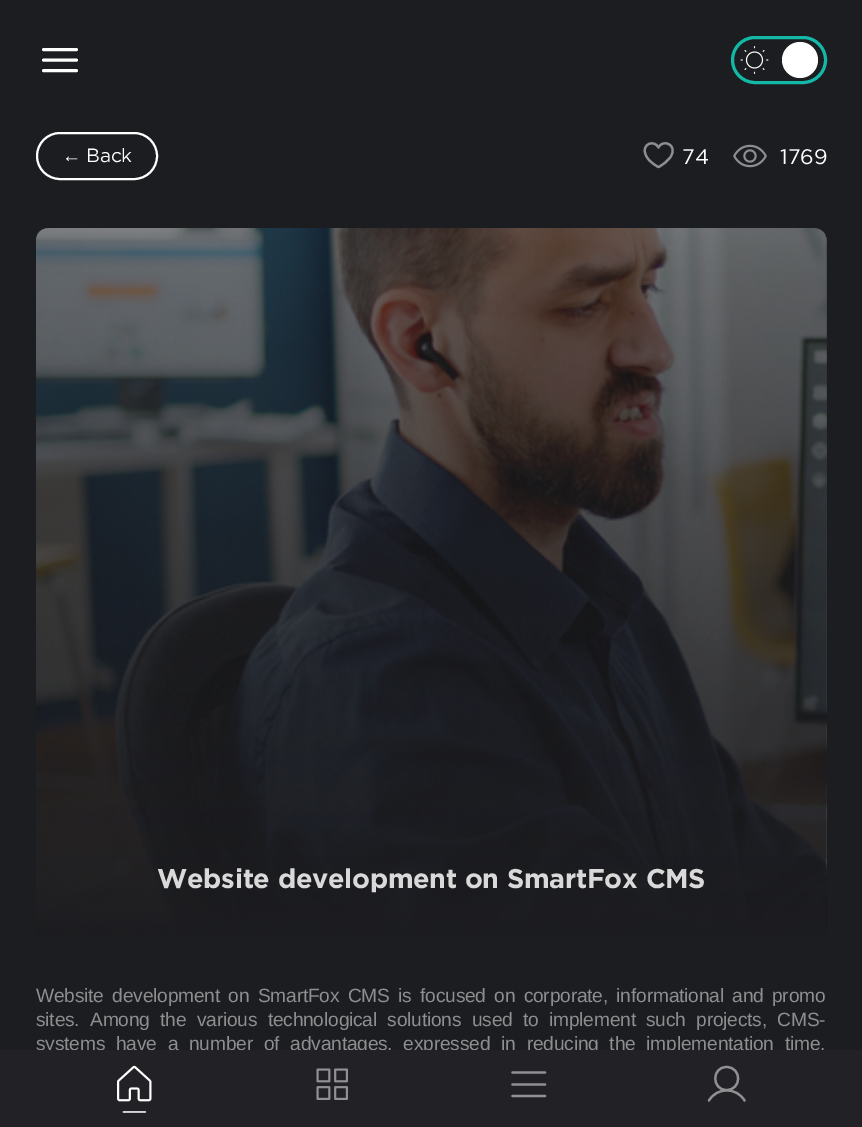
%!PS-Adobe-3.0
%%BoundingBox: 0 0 862 1127
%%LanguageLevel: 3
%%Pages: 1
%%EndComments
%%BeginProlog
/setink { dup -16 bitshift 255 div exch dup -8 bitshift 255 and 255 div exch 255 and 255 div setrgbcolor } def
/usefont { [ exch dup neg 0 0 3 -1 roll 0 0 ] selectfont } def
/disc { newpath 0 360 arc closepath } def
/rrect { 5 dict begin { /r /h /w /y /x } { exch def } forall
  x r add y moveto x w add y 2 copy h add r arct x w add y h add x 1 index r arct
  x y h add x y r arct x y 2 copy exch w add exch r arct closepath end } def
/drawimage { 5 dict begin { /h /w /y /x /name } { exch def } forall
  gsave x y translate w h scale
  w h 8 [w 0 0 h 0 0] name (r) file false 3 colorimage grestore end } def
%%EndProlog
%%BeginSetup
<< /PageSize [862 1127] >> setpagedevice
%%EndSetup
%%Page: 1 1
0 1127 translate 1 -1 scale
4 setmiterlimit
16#1C1D20 setink
0 0 862 1127 rectfill
16#FFFFFF setink
3 setlinewidth
1 setlinecap
1 setlinejoin
43.5 49.5 moveto 76.5 49.5 lineto 43.5 60 moveto 76.5 60 lineto 43.5 70.5 moveto 76.5 70.5 lineto stroke
16#13B8A6 setink
0 setlinecap
0 setlinejoin
732.5 37.5 93 45 22.5 rrect stroke
(img1.raw) 740 46 29 28 drawimage
16#FFFFFF setink
800 60 18 disc fill
2 setlinewidth
37 133 120 46 23 rrect stroke
/LiberationSans-Regular 19.2 usefont
62 162 moveto -0.2 0 (←) ashow
/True-Regular 19.2 usefont
86 162 moveto -0.2 0 (Back) ashow
16#8E8E90 setink
2.2 setlinewidth
1 setlinecap
1 setlinejoin
658.5 167 moveto 655 165.5 651.5 162.5 649 160 curveto 638 147.5 650.5 139 657 145.5 curveto 658.5 147.5 lineto 662.5 138.5 678.5 144.5 670.5 157 curveto 667.5 161 663 165 658.5 167 curveto closepath stroke
/True-Regular 21 usefont
16#FFFFFF setink
682 164 moveto (74) show
(img2.raw) 733 144 34 24 drawimage
780 164 moveto (1769) show
(img3.raw) 36 228 791 708 drawimage
(img4.raw) 36 228 791 708 drawimage
/True-Bold 27 usefont
16#D9D9D9 setink
157 888 moveto -0.25 0 (Website development on SmartFox CMS) ashow
/LiberationSans-Regular 19.2 usefont
16#8E8E90 setink
36 1002 moveto 3.25 0 32 -0.2 0 (Website development on SmartFox CMS is focused on corporate, informational and promo) awidthshow
36 1026 moveto 5.25 0 32 -0.2 0 (sites. Among the various technological solutions used to implement such projects, CMS-) awidthshow
36 1050 moveto 5.75 0 32 -0.2 0 (systems have a number of advantages, expressed in reducing the implementation time,) awidthshow
16#222226 setink
0 1050 862 77 rectfill
(img5.raw) 117 1065 35 48 drawimage
(img6.raw) 316 1068 32 32 drawimage
16#919193 setink
512.5 1084.5 moveto 545 1084.5 lineto 512.5 1072.5 moveto 545 1072.5 lineto 512.5 1096 moveto 545 1096 lineto stroke
726.5 1090 moveto 742 1090 742 1067 726.5 1067 curveto 711.5 1067 711.5 1090 726.5 1090 curveto closepath 709 1100.5 moveto 717 1087 736.5 1087 744.5 1100.5 curveto stroke
showpage
%%EOF
